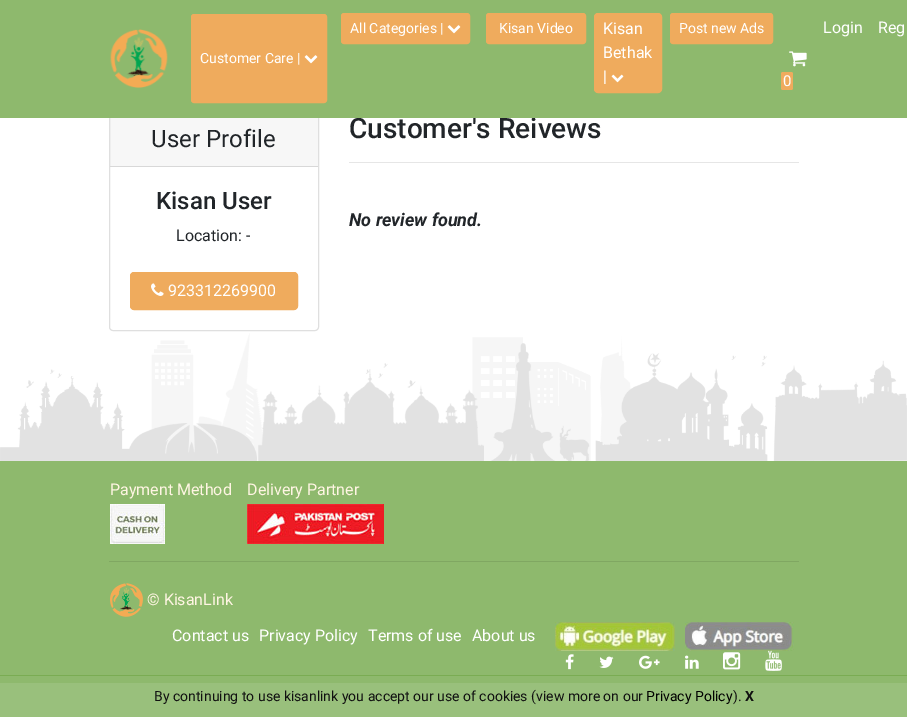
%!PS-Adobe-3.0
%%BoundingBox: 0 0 907 717
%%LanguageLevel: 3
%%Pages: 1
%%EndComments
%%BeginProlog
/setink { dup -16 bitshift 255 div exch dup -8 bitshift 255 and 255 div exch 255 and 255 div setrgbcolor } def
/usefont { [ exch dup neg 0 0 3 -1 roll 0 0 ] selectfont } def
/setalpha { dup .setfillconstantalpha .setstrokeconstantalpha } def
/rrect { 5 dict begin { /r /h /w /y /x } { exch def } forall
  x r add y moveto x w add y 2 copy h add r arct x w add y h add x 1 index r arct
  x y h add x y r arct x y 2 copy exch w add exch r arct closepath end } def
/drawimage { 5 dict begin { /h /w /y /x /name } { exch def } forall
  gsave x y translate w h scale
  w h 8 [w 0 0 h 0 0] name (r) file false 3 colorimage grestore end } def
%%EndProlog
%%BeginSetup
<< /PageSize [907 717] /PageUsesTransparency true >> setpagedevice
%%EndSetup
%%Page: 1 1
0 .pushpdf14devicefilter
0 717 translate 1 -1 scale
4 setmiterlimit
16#FFFFFF setink
0 0 907 717 rectfill
16#99C07C setink
0 683 907 34 rectfill
16#DFDFDF setink
109.5 112.5 209 218 3.5 rrect stroke
/Roboto-Medium 28 usefont
16#212529 setink
349 138 moveto (Customer's Reivews) show
16#8EB96D setink
0 0 907 118 rectfill
(img1.raw) 110 29 58 59 drawimage
16#EFAB5D setink
341.5 13.5 128 30 2.5 rrect gsave fill grestore
stroke
/Roboto-Regular 14 usefont
16#FFFFFF setink
350 33 moveto (All Categories |) show
(img2.raw) 447 25 14 9 drawimage
16#EFAB5D setink
486.5 13.5 99 30 2.5 rrect gsave fill grestore
stroke
16#FFFFFF setink
499 33 moveto (Kisan Video) show
16#EFAB5D setink
594.5 13.5 67 79 3.5 rrect gsave fill grestore
stroke
/Roboto-Regular 16 usefont
16#FFFFFF setink
[
    [(Kisan) 603 34]
    [(Bethak) 603 58]
    [(|) 603 82]
] { aload pop moveto show } forall
(img3.raw) 611 74 13 9 drawimage
16#EFAB5D setink
670.5 13.5 102 30 2.5 rrect gsave fill grestore
stroke
/Roboto-Regular 14 usefont
16#FFFFFF setink
679 33 moveto (Post new Ads) show
/Roboto-Regular 16 usefont
823 33 moveto (Login) show
878 33 moveto (Reg) show
16#EFAB5D setink
191.5 14.5 135 88 2.5 rrect gsave fill grestore
stroke
/Roboto-Regular 14 usefont
16#FFFFFF setink
200 63 moveto (Customer Care |) show
(img2.raw) 304 55 14 9 drawimage
(img4.raw) 789 51 18 16 drawimage
16#EFAB5D setink
781 72 12 18 2 rrect fill
/Roboto-Regular 15 usefont
16#FFFFFF setink
783 86 moveto (0) show
0.03 setalpha
16#000000 setink
110 118 208 48 rectfill
1 setalpha
16#D8D8D8 setink
110 166 208 1 rectfill
/Roboto-Regular 24 usefont
16#212529 setink
151 147 moveto (User Profile) show
/Roboto-Medium 24 usefont
156 209 moveto (Kisan User) show
/Roboto-Regular 16 usefont
176 241 moveto (Location: -) show
16#EFAB5D setink
130.5 272.5 167 37 3.5 rrect gsave fill grestore
stroke
(img5.raw) 151 283 13 13 drawimage
16#FFFFFF setink
168 296 moveto (923312269900) show
16#E6E6E6 setink
349 162 450 1 rectfill
/Roboto-BoldItalic 18 usefont
16#212529 setink
349 226 moveto (No review found.) show
(img6.raw) 0 333 907 128 drawimage
16#8EB96D setink
0 461 907 214 rectfill
0 676 907 7 rectfill
/Roboto-Regular 16 usefont
16#FFF5E3 setink
110 495 moveto (Payment Method) show
247 495 moveto (Delivery Partner) show
(img7.raw) 110 504 55 40 drawimage
(img8.raw) 247 504 137 40 drawimage
16#80A762 setink
109 561 690 1 rectfill
(img9.raw) 110 583 33 34 drawimage
16#FFF5E3 setink
147 605 moveto (© KisanLink) show
16#FFFFFF setink
[
    [(Contact us) 172 641]
    [(Privacy Policy) 259 641]
    [(Terms of use) 368 641]
    [(About us) 472 641]
] { aload pop moveto show } forall
(img10.raw) 555 622 120 29 drawimage
(img11.raw) 685 622 109 29 drawimage
(img12.raw) 565 654 9 16 drawimage
(img13.raw) 599 656 15 12 drawimage
(img14.raw) 639 655 21 14 drawimage
(img15.raw) 685 655 14 14 drawimage
(img16.raw) 723 652 18 18 drawimage
(img17.raw) 765 650 17 21 drawimage
16#7AAC53 setink
0 675 907 1 rectfill
/Roboto-Regular 14 usefont
16#111111 setink
154 701 moveto (By continuing to use kisanlink you accept our use of cookies \(view more on our) show
16#000000 setink
646 701 moveto (Privacy Policy) show
16#111111 setink
733 701 moveto (\).) show
/Roboto-Bold 14 usefont
745 701 moveto (X) show
.poppdf14devicefilter showpage
%%EOF
